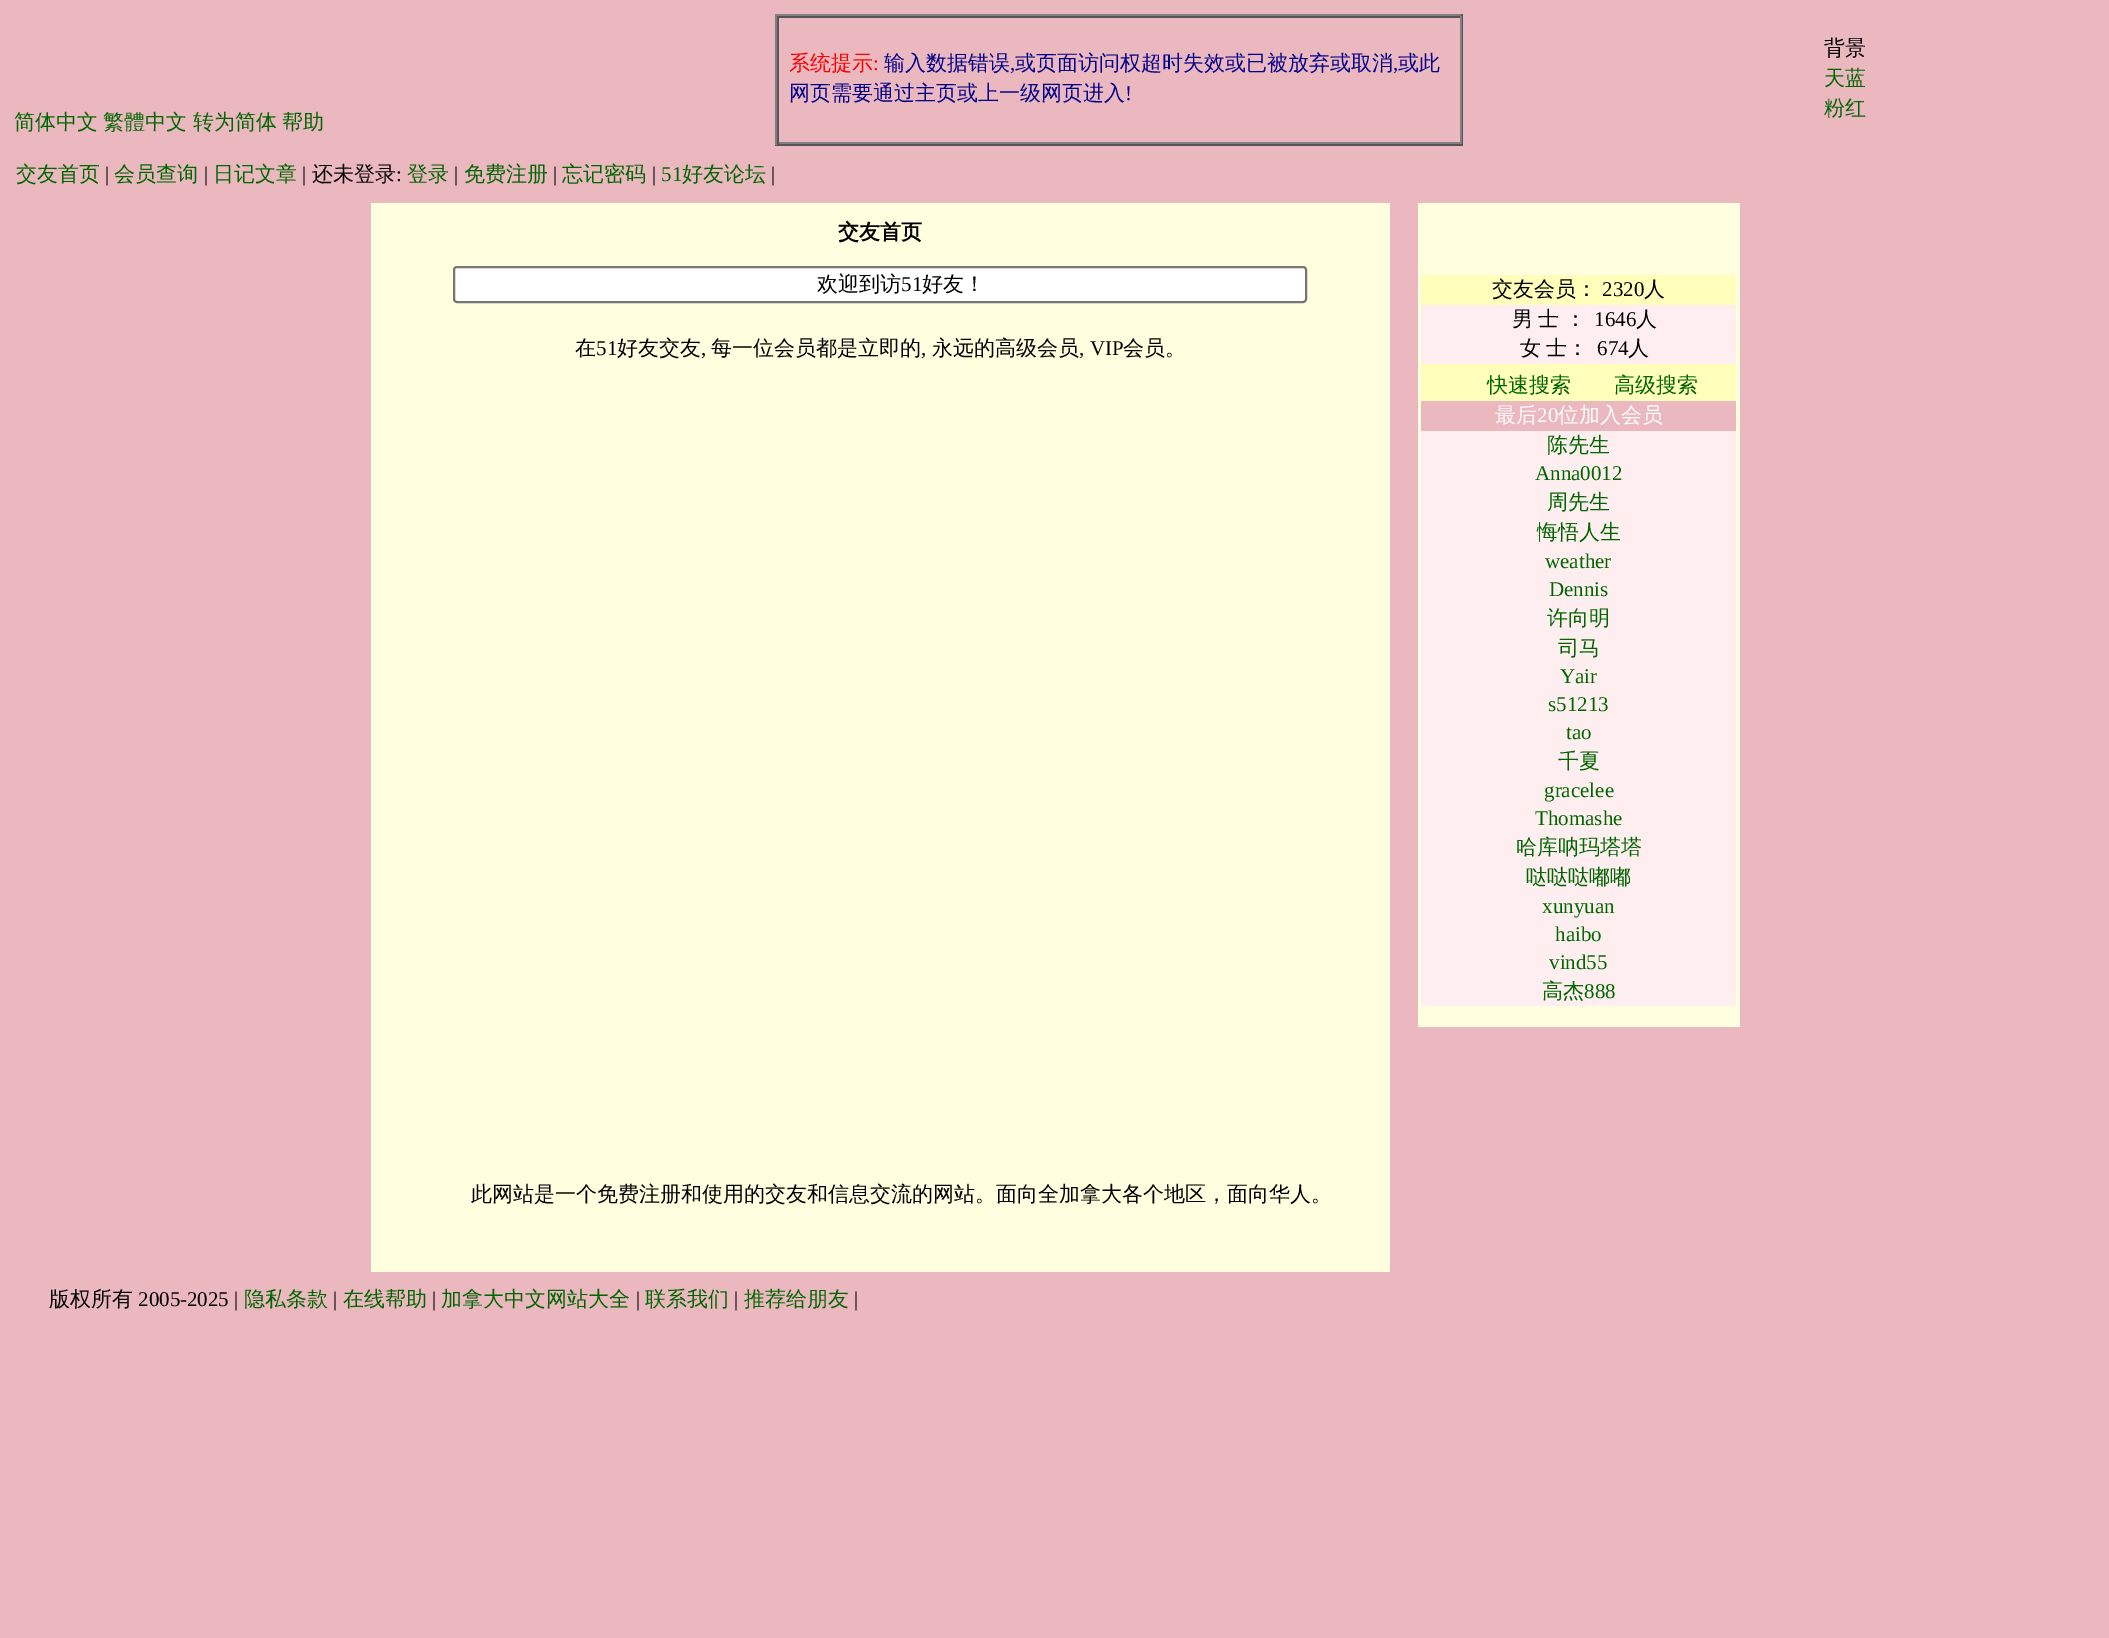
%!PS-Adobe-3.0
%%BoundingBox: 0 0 2109 1638
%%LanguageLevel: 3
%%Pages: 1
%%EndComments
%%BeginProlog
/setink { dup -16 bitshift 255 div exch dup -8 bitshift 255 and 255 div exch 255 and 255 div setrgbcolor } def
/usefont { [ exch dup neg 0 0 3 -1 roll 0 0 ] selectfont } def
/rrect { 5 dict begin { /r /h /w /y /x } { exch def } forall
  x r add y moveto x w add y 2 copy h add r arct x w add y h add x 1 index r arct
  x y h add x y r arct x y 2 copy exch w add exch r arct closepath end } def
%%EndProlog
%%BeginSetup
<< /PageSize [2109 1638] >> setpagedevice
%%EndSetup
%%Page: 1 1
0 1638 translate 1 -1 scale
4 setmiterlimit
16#ECB8C0 setink
0 0 2109 1638 rectfill
[
    [775 14 688 2 16#808080]
    [1461 14 2 131 16#555555]
    [775 144 688 2 16#555555]
    [775 14 2 131 16#808080]
    [777 16 684 2 16#555555]
    [1460 16 2 128 16#808080]
    [777 142 684 2 16#808080]
    [777 16 2 128 16#555555]
] { aload pop setink rectfill } forall
/WenQuanYiZenHei-Medium 21 usefont
16#FF0000 setink
789 70 moveto (系统提示) show
/LiberationSerif-Regular 21 usefont
873 70 moveto (:) show
/WenQuanYiZenHei-Medium 21 usefont
16#000088 setink
884 70 moveto (输入数据错误) show
/LiberationSerif-Regular 21 usefont
1010 70 moveto (,) show
/WenQuanYiZenHei-Medium 21 usefont
1015 70 moveto (或页面访问权超时失效或已被放弃或取消) show
/LiberationSerif-Regular 21 usefont
1393 70 moveto (,) show
/WenQuanYiZenHei-Medium 21 usefont
1398 70 moveto (或此) show
789 100 moveto (网页需要通过主页或上一级网页进入) show
/LiberationSerif-Regular 21 usefont
1125 100 moveto (!) show
/WenQuanYiZenHei-Medium 21 usefont
16#000000 setink
1824 55 moveto (背景) show
16#006600 setink
[
    [(天蓝) 1824 85]
    [(粉红) 1824 115]
    [(简体中文) 14 129]
    [(繁體中文) 103 129]
    [(转为简体) 193 129]
    [(帮助) 282 129]
    [(交友首页) 16 181]
] { aload pop moveto show } forall
/LiberationSerif-Regular 21 usefont
16#000000 setink
105 181 moveto (|) show
/WenQuanYiZenHei-Medium 21 usefont
16#006600 setink
114 181 moveto (会员查询) show
/LiberationSerif-Regular 21 usefont
16#000000 setink
204 181 moveto (|) show
/WenQuanYiZenHei-Medium 21 usefont
16#006600 setink
213 181 moveto (日记文章) show
/LiberationSerif-Regular 21 usefont
16#000000 setink
302 181 moveto (|) show
/WenQuanYiZenHei-Medium 21 usefont
312 181 moveto (还未登录) show
/LiberationSerif-Regular 21 usefont
396 181 moveto (:) show
/WenQuanYiZenHei-Medium 21 usefont
16#006600 setink
407 181 moveto (登录) show
/LiberationSerif-Regular 21 usefont
16#000000 setink
454 181 moveto (|) show
/WenQuanYiZenHei-Medium 21 usefont
16#006600 setink
464 181 moveto (免费注册) show
/LiberationSerif-Regular 21 usefont
16#000000 setink
553 181 moveto (|) show
/WenQuanYiZenHei-Medium 21 usefont
16#006600 setink
562 181 moveto (忘记密码) show
/LiberationSerif-Regular 21 usefont
16#000000 setink
652 181 moveto (|) show
16#006600 setink
661 181 moveto (51) show
/WenQuanYiZenHei-Medium 21 usefont
682 181 moveto (好友论坛) show
/LiberationSerif-Regular 21 usefont
16#000000 setink
771 181 moveto (|) show
16#FFFFDF setink
371 203 1019 1069 rectfill
/WenQuanYiZenHei-Bold 21 usefont
16#000000 setink
838 239 moveto (交友首页) show
16#FFFFFF setink
454 267 852 35 3 rrect gsave fill grestore
16#767676 setink
2 setlinewidth
stroke
/WenQuanYiZenHei-Medium 21 usefont
16#000000 setink
817 291 moveto (欢迎到访) show
/LiberationSerif-Regular 21 usefont
901 291 moveto (51) show
/WenQuanYiZenHei-Medium 21 usefont
922 291 moveto (好友！) show
575 355 moveto (在) show
/LiberationSerif-Regular 21 usefont
596 355 moveto (51) show
/WenQuanYiZenHei-Medium 21 usefont
617 355 moveto (好友交友) show
/LiberationSerif-Regular 21 usefont
701 355 moveto (,) show
/WenQuanYiZenHei-Medium 21 usefont
711 355 moveto (每一位会员都是立即的) show
/LiberationSerif-Regular 21 usefont
921 355 moveto (,) show
/WenQuanYiZenHei-Medium 21 usefont
932 355 moveto (永远的高级会员) show
/LiberationSerif-Regular 21 usefont
1079 355 moveto (, VIP) show
/WenQuanYiZenHei-Medium 21 usefont
1123 355 moveto (会员。) show
471 1201 moveto (此网站是一个免费注册和使用的交友和信息交流的网站。面向全加拿大各个地区，面向华人。) show
16#FFFFDF setink
1418 203 322 824 rectfill
16#FFFFBB setink
1421 275 315 30 rectfill
16#000000 setink
1492 296 moveto (交友会员：) show
/LiberationSerif-Regular 21 usefont
1602 296 moveto (2320) show
/WenQuanYiZenHei-Medium 21 usefont
1644 296 moveto (人) show
16#FFEEF0 setink
1421 305 315 59 rectfill
16#000000 setink
1512 326 moveto -1 0 32 (男 士 ：) widthshow
/LiberationSerif-Regular 21 usefont
1594 326 moveto (1646) show
/WenQuanYiZenHei-Medium 21 usefont
1636 326 moveto (人) show
1520 355 moveto -1 0 32 (女 士：) widthshow
/LiberationSerif-Regular 21 usefont
1597 355 moveto (674) show
/WenQuanYiZenHei-Medium 21 usefont
1628 355 moveto (人) show
16#FFFFBB setink
1421 364 315 37 rectfill
16#006600 setink
1487 392 moveto (快速搜索) show
1614 392 moveto (高级搜索) show
16#ECB8C0 setink
1421 401 315 30 rectfill
16#FFFFFF setink
1495 422 moveto (最后) show
/LiberationSerif-Regular 21 usefont
1537 422 moveto (20) show
/WenQuanYiZenHei-Medium 21 usefont
1558 422 moveto (位加入会员) show
16#FFEEF0 setink
1421 431 315 575 rectfill
16#006600 setink
1547 452 moveto (陈先生) show
/LiberationSerif-Regular 21 usefont
1535 480 moveto (Anna0012) show
/WenQuanYiZenHei-Medium 21 usefont
1547 509 moveto (周先生) show
1537 539 moveto (悔悟人生) show
/LiberationSerif-Regular 21 usefont
1545 568 moveto (weather) show
1549 596 moveto (Dennis) show
/WenQuanYiZenHei-Medium 21 usefont
1547 625 moveto (许向明) show
1558 655 moveto (司马) show
/LiberationSerif-Regular 21 usefont
[
    [(Yair) 1560 683]
    [(s51213) 1548 711]
    [(tao) 1566 739]
] { aload pop moveto show } forall
/WenQuanYiZenHei-Medium 21 usefont
1558 768 moveto (千夏) show
/LiberationSerif-Regular 21 usefont
1544 797 moveto (gracelee) show
1535 825 moveto (Thomashe) show
/WenQuanYiZenHei-Medium 21 usefont
1516 854 moveto (哈库呐玛塔塔) show
1526 884 moveto (哒哒哒嘟嘟) show
/LiberationSerif-Regular 21 usefont
[
    [(xunyuan) 1542 913]
    [(haibo) 1555 941]
    [(vind55) 1549 969]
] { aload pop moveto show } forall
/WenQuanYiZenHei-Medium 21 usefont
1542 998 moveto (高杰) show
/LiberationSerif-Regular 21 usefont
1584 998 moveto (888) show
/WenQuanYiZenHei-Medium 21 usefont
16#000000 setink
49 1306 moveto (版权所有) show
/LiberationSerif-Regular 21 usefont
138 1306 moveto (2005-2025 |) show
/WenQuanYiZenHei-Medium 21 usefont
16#006600 setink
244 1306 moveto (隐私条款) show
/LiberationSerif-Regular 21 usefont
16#000000 setink
333 1306 moveto (|) show
/WenQuanYiZenHei-Medium 21 usefont
16#006600 setink
343 1306 moveto (在线帮助) show
/LiberationSerif-Regular 21 usefont
16#000000 setink
432 1306 moveto (|) show
/WenQuanYiZenHei-Medium 21 usefont
16#006600 setink
441 1306 moveto (加拿大中文网站大全) show
/LiberationSerif-Regular 21 usefont
16#000000 setink
636 1306 moveto (|) show
/WenQuanYiZenHei-Medium 21 usefont
16#006600 setink
645 1306 moveto (联系我们) show
/LiberationSerif-Regular 21 usefont
16#000000 setink
734 1306 moveto (|) show
/WenQuanYiZenHei-Medium 21 usefont
16#006600 setink
744 1306 moveto (推荐给朋友) show
/LiberationSerif-Regular 21 usefont
16#000000 setink
854 1306 moveto (|) show
showpage
%%EOF
